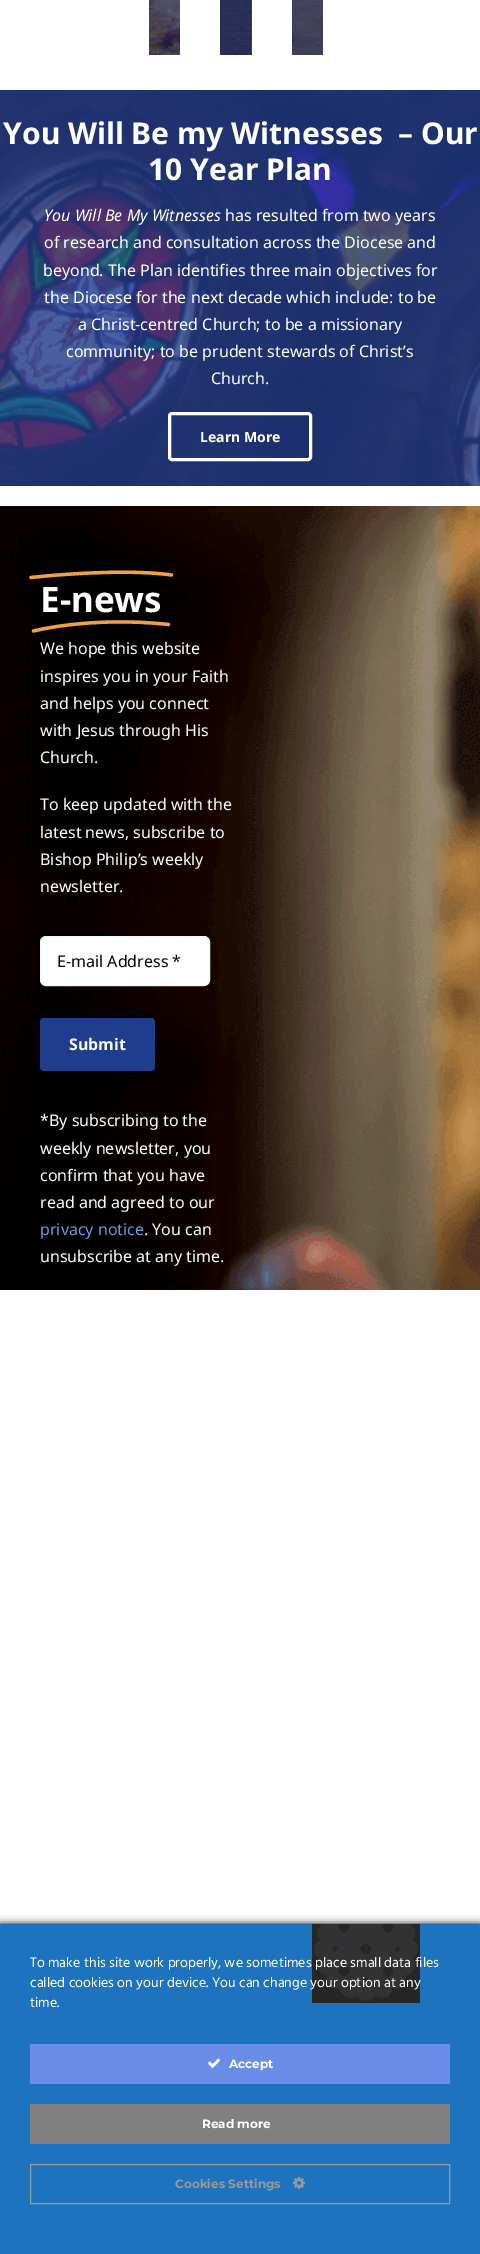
%!PS-Adobe-3.0
%%BoundingBox: 0 0 480 2254
%%LanguageLevel: 3
%%Pages: 1
%%EndComments
%%BeginProlog
/setink { dup -16 bitshift 255 div exch dup -8 bitshift 255 and 255 div exch 255 and 255 div setrgbcolor } def
/usefont { [ exch dup neg 0 0 3 -1 roll 0 0 ] selectfont } def
/setalpha { dup .setfillconstantalpha .setstrokeconstantalpha } def
/rrect { 5 dict begin { /r /h /w /y /x } { exch def } forall
  x r add y moveto x w add y 2 copy h add r arct x w add y h add x 1 index r arct
  x y h add x y r arct x y 2 copy exch w add exch r arct closepath end } def
/softshadow { 12 dict begin { /a /b /q /h /w /y /x } { exch def } forall gsave /was 0 def
  9 -2 -9 { dup b mul 4 div /e exch def 1 sub .425 mul 2.718 exch exp 1 add a .99 .min exch div /now exch def
    1 1 now sub 1 was sub div sub setalpha /was now def
    w h .min e 2 mul add 0 gt { x e sub y e sub w e 2 mul add h e 2 mul add
      q e add b .6 mul add w h .min 2 div e add .min 0 .max rrect fill } if } for grestore end } def
/drawimage { 5 dict begin { /h /w /y /x /name } { exch def } forall
  gsave x y translate w h scale
  w h 8 [w 0 0 h 0 0] name (r) file false 3 colorimage grestore end } def
%%EndProlog
%%BeginSetup
<< /PageSize [480 2254] /PageUsesTransparency true >> setpagedevice
%%EndSetup
%%Page: 1 1
0 .pushpdf14devicefilter
0 2254 translate 1 -1 scale
4 setmiterlimit
16#FFFFFF setink
0 0 480 2254 rectfill
(img1.raw) 149 0 31 55 drawimage
(img2.raw) 220 0 32 55 drawimage
(img3.raw) 292 0 31 55 drawimage
(img4.raw) 0 90 480 396 drawimage
/NotoSans-Bold 30 usefont
3 144 moveto (You Will Be my Witnesses  – Our) show
148 180 moveto (10 Year Plan) show
/NotoSans-Italic 16 usefont
44 221 moveto (You Will Be My Witnesses) show
/NotoSans-Regular 16 usefont
[
    [(has resulted from two years) 225 221]
    [(of research and consultation across the Diocese and) 44 248]
    [(beyond. The Plan identifies three main objectives for) 43 276]
    [(the Diocese for the next decade which include: to be) 44 303]
    [(a Christ-centred Church; to be a missionary) 78 330]
    [(community; to be prudent stewards of Christ’s) 66 357]
    [(Church.) 211 384]
] { aload pop moveto show } forall
3 setlinewidth
169.5 413.5 141 46 2.5 rrect stroke
/NotoSans-Bold 14 usefont
200 442 moveto (Learn More) show
(img5.raw) 0 506 480 784 drawimage
16#F0A146 setink
3.3 setlinewidth
1 setlinecap
1 setlinejoin
33.5 631 moveto 33.5 631 90.5 616 168.5 624.5 curveto stroke
31 577.5 moveto 31 577.5 118.5 567.5 171.5 575 curveto stroke
/NotoSans-Bold 35 usefont
16#FFFFFF setink
40 612 moveto (E-news) show
/NotoSans-Regular 16 usefont
[
    [(We hope this website) 40 654]
    [(inspires you in your Faith) 40 682]
    [(and helps you connect) 40 709]
    [(with Jesus through His) 40 736]
    [(Church.) 40 763]
    [(To keep updated with the) 40 810]
    [(latest news, subscribe to) 40 838]
    [(Bishop Philip’s weekly) 40 865]
    [(newsletter.) 40 892]
] { aload pop moveto show } forall
40.5 936.5 169 49 5.5 rrect gsave fill grestore
16#EAF8FF setink
1 setlinewidth
0 setlinecap
0 setlinejoin
stroke
16#000000 setink
57 967 moveto (E-mail Address *) show
16#1F3C8D setink
40 1018 115 53 4 rrect fill
/NotoSans-Bold 16 usefont
16#FFFFFF setink
69 1050 moveto (Submit) show
/NotoSans-Regular 16 usefont
[
    [(*By subscribing to the) 40 1126]
    [(weekly newsletter, you) 40 1154]
    [(confirm that you have) 40 1181]
    [(read and agreed to our) 40 1208]
] { aload pop moveto show } forall
16#669DDC setink
40 1235 moveto (privacy notice) show
16#FFFFFF setink
144 1235 moveto (. You can) show
40 1262 moveto (unsubscribe at any time.) show
16#000000 setink
0 1924 480 330 0 4 1 softshadow
16#1E73BE setink
0 1924 480 330 rectfill
(img6.raw) 312 1924 108 79 drawimage
/Hind-Regular 14 usefont
16#FFFFFF setink
[
    [(To make this site work properly, we sometimes place small data files) 30 1967]
    [(called cookies on your device. You can change your option at any) 30 1987]
    [(time.) 30 2007]
] { aload pop moveto show } forall
16#6A8EE7 setink
30 2044 420 40 rectfill
(img7.raw) 208 2058 12 10 drawimage
/Montserrat-Bold 12 usefont
16#FFFFFF setink
229 2068 moveto (Accept) show
16#808080 setink
30 2104 420 40 rectfill
16#FFFFFF setink
202 2128 moveto (Read more) show
16#999999 setink
30.5 2164.5 419 39 rectstroke
175 2188 moveto (Cookies Settings) show
(img8.raw) 293 2177 12 12 drawimage
.poppdf14devicefilter showpage
%%EOF
